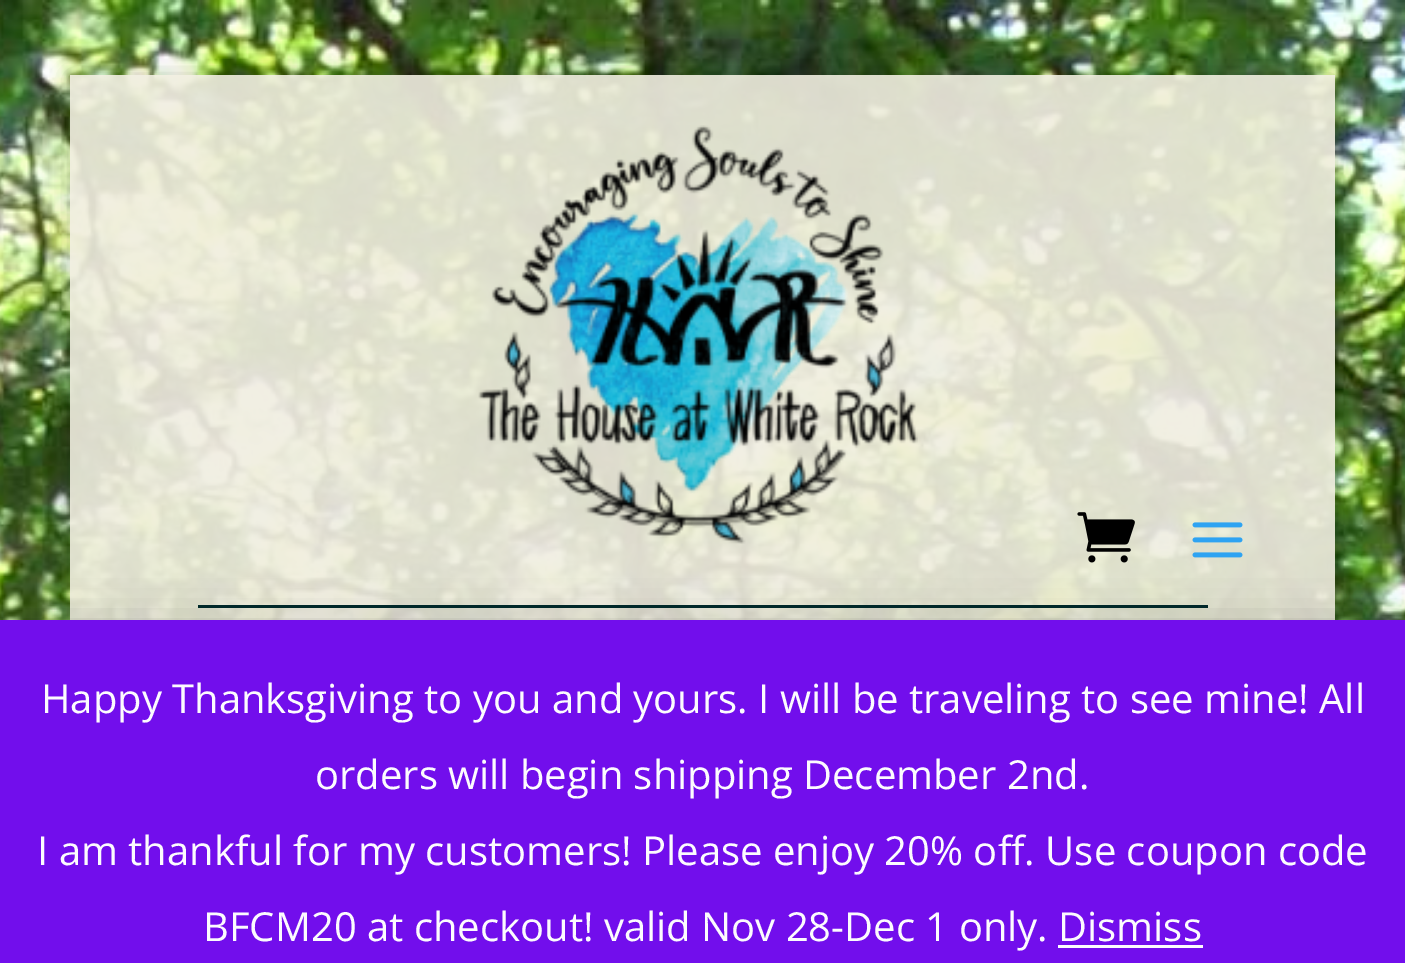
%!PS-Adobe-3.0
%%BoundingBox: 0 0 1405 963
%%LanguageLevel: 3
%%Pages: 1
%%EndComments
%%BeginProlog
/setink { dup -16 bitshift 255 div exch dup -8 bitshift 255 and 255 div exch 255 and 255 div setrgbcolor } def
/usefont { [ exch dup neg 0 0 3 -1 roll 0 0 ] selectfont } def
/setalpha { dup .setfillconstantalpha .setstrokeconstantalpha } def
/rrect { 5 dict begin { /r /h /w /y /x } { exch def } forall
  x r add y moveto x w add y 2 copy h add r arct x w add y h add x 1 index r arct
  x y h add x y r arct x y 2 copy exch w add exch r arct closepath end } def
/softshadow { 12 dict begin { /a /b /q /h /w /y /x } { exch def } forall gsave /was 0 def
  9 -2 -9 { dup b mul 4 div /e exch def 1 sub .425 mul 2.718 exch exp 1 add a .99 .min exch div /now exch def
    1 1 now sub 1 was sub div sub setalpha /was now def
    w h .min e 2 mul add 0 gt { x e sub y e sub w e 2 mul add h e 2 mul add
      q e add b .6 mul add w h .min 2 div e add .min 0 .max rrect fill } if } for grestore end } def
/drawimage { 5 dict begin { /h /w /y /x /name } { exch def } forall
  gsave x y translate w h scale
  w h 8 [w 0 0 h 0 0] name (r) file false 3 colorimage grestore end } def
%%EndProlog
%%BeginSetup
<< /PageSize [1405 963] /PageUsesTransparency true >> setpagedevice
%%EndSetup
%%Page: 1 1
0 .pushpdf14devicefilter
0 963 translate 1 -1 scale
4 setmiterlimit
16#FFFFFF setink
0 0 1405 963 rectfill
(img1.raw) 0 0 1405 620 drawimage
gsave
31 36 moveto 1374 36 lineto 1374 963 lineto 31 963 lineto closepath 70 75 moveto 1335 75 lineto 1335 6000 lineto 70 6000 lineto closepath eoclip newpath
16#000000 setink
70 75 1265 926 0 12.5 0.2 softshadow
grestore
0.9 setalpha
16#F0EDE0 setink
70 75 1265 545 rectfill
1 setalpha
(img2.raw) 478 125 440 419 drawimage
(img3.raw) 1077 512 58 51 drawimage
(img4.raw) 1192 522 51 36 drawimage
16#00292A setink
198 605 1010 3 rectfill
16#000000 setink
0 623 1405 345 0 20 0.2 softshadow
16#720EEC setink
0 620 1405 343 rectfill
/OpenSans-Regular 40 usefont
16#FCFBFE setink
[
    [(Happy Thanksgiving to you and yours. I will be traveling to see mine! All) 41 713]
    [(orders will begin shipping December 2nd.) 315 789]
    [(I am thankful for my customers! Please enjoy 20% off. Use coupon code) 37 865]
    [(BFCM20 at checkout! valid Nov 28-Dec 1 only. Dismiss) 203 941]
] { aload pop moveto show } forall
1058 945 145 3 rectfill
.poppdf14devicefilter showpage
%%EOF
